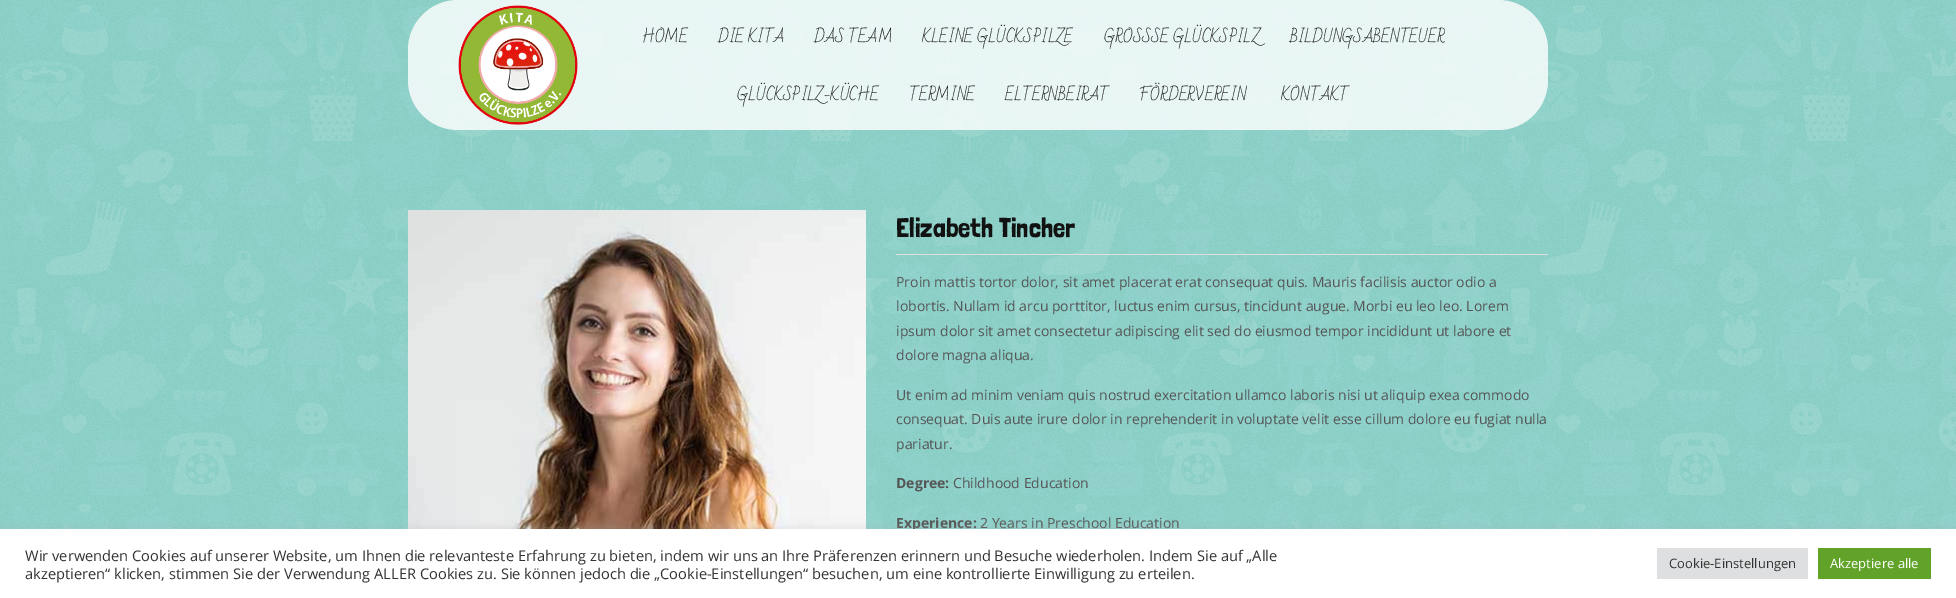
%!PS-Adobe-3.0
%%BoundingBox: 0 0 1956 598
%%LanguageLevel: 3
%%Pages: 1
%%EndComments
%%BeginProlog
/setink { dup -16 bitshift 255 div exch dup -8 bitshift 255 and 255 div exch 255 and 255 div setrgbcolor } def
/usefont { [ exch dup neg 0 0 3 -1 roll 0 0 ] selectfont } def
/setalpha { dup .setfillconstantalpha .setstrokeconstantalpha } def
/rrect { 5 dict begin { /r /h /w /y /x } { exch def } forall
  x r add y moveto x w add y 2 copy h add r arct x w add y h add x 1 index r arct
  x y h add x y r arct x y 2 copy exch w add exch r arct closepath end } def
/softshadow { 12 dict begin { /a /b /q /h /w /y /x } { exch def } forall gsave /was 0 def
  9 -2 -9 { dup b mul 4 div /e exch def 1 sub .425 mul 2.718 exch exp 1 add a .99 .min exch div /now exch def
    1 1 now sub 1 was sub div sub setalpha /was now def
    w h .min e 2 mul add 0 gt { x e sub y e sub w e 2 mul add h e 2 mul add
      q e add b .6 mul add w h .min 2 div e add .min 0 .max rrect fill } if } for grestore end } def
/drawimage { 5 dict begin { /h /w /y /x /name } { exch def } forall
  gsave x y translate w h scale
  w h 8 [w 0 0 h 0 0] name (r) file false 3 colorimage grestore end } def
%%EndProlog
%%BeginSetup
<< /PageSize [1956 598] /PageUsesTransparency true >> setpagedevice
%%EndSetup
%%Page: 1 1
0 .pushpdf14devicefilter
0 598 translate 1 -1 scale
4 setmiterlimit
16#FFFFFF setink
0 0 1956 598 rectfill
(img1.raw) 0 0 1956 529 drawimage
0.8 setalpha
408 0 1140 130 50 rrect fill
1 setalpha
(img2.raw) 458 5 120 120 drawimage
/BadScript-Regular 15 usefont
16#222222 setink
[
    [(HOME) 642 42]
    [(DIE KITA) 718 42]
    [(DAS TEAM) 814 42]
    [(KLEINE GLÜCKSPILZE) 922 42]
    [(GROSS) 1104 42]
    [(SE GLÜCKSPILZ) 1151 42]
    [(BILDUNGSABENTEUER) 1290 42]
    [(GLÜCKSPILZ-KÜCHE) 737 100]
    [(TERMINE) 909 100]
    [(ELTERNBEIRAT) 1005 100]
    [(FÖRDERVEREIN) 1139 100]
    [(KONTAKT) 1281 100]
] { aload pop moveto show } forall
(img3.raw) 408 210 458 319 drawimage
16#DFDFDF setink
896 254 652 1 rectfill
/LondrinaSolid-Regular 27.25 usefont
16#121212 setink
896 237 moveto (Elizabeth Tincher) show
/OpenSans-Regular 14 usefont
16#555555 setink
[
    [(Proin mattis tortor dolor, sit amet placerat erat consequat quis. Mauris facilisis auctor odio a) 896 287]
    [(lobortis. Nullam id arcu porttitor, luctus enim cursus, tincidunt augue. Morbi eu leo leo. Lorem) 896 311]
    [(ipsum dolor sit amet consectetur adipiscing elit sed do eiusmod tempor incididunt ut labore et) 896 336]
    [(dolore magna aliqua.) 896 360]
    [(Ut enim ad minim veniam quis nostrud exercitation ullamco laboris nisi ut aliquip exea commodo) 896 400]
    [(consequat. Duis aute irure dolor in reprehenderit in voluptate velit esse cillum dolore eu fugiat nulla) 896 424]
    [(pariatur.) 896 449]
] { aload pop moveto show } forall
/OpenSans-Bold 14 usefont
896 488 moveto (Degree:) show
/OpenSans-Regular 14 usefont
953 488 moveto (Childhood Education) show
/OpenSans-Bold 14 usefont
896 528 moveto (Experience:) show
/OpenSans-Regular 14 usefont
980 528 moveto (2 Years in Preschool Education) show
16#ACABAB setink
0 528 1956 69 0 5 0.3 softshadow
16#FFFFFF setink
0 529 1956 69 rectfill
/OpenSans-Regular 14.67 usefont
16#333333 setink
25 561 moveto (Wir verwenden Cookies auf unserer Website, um Ihnen die relevanteste Erfahrung zu bieten, indem wir uns an Ihre Präferenzen erinnern und Besuche wiederholen. Indem Sie auf „Alle) show
25 579 moveto (akzeptieren“ klicken, stimmen Sie der Verwendung ALLER Cookies zu. Sie können jedoch die „Cookie-Einstellungen“ besuchen, um eine kontrollierte Einwilligung zu erteilen.) show
16#DEDFE0 setink
1657 548 151 31 rectfill
/OpenSans-Regular 13 usefont
16#333333 setink
1669 568 moveto (Cookie-Einstellungen) show
16#61A229 setink
1818 548 113 31 rectfill
16#FFFFFF setink
1830 568 moveto (Akzeptiere alle) show
.poppdf14devicefilter showpage
%%EOF
